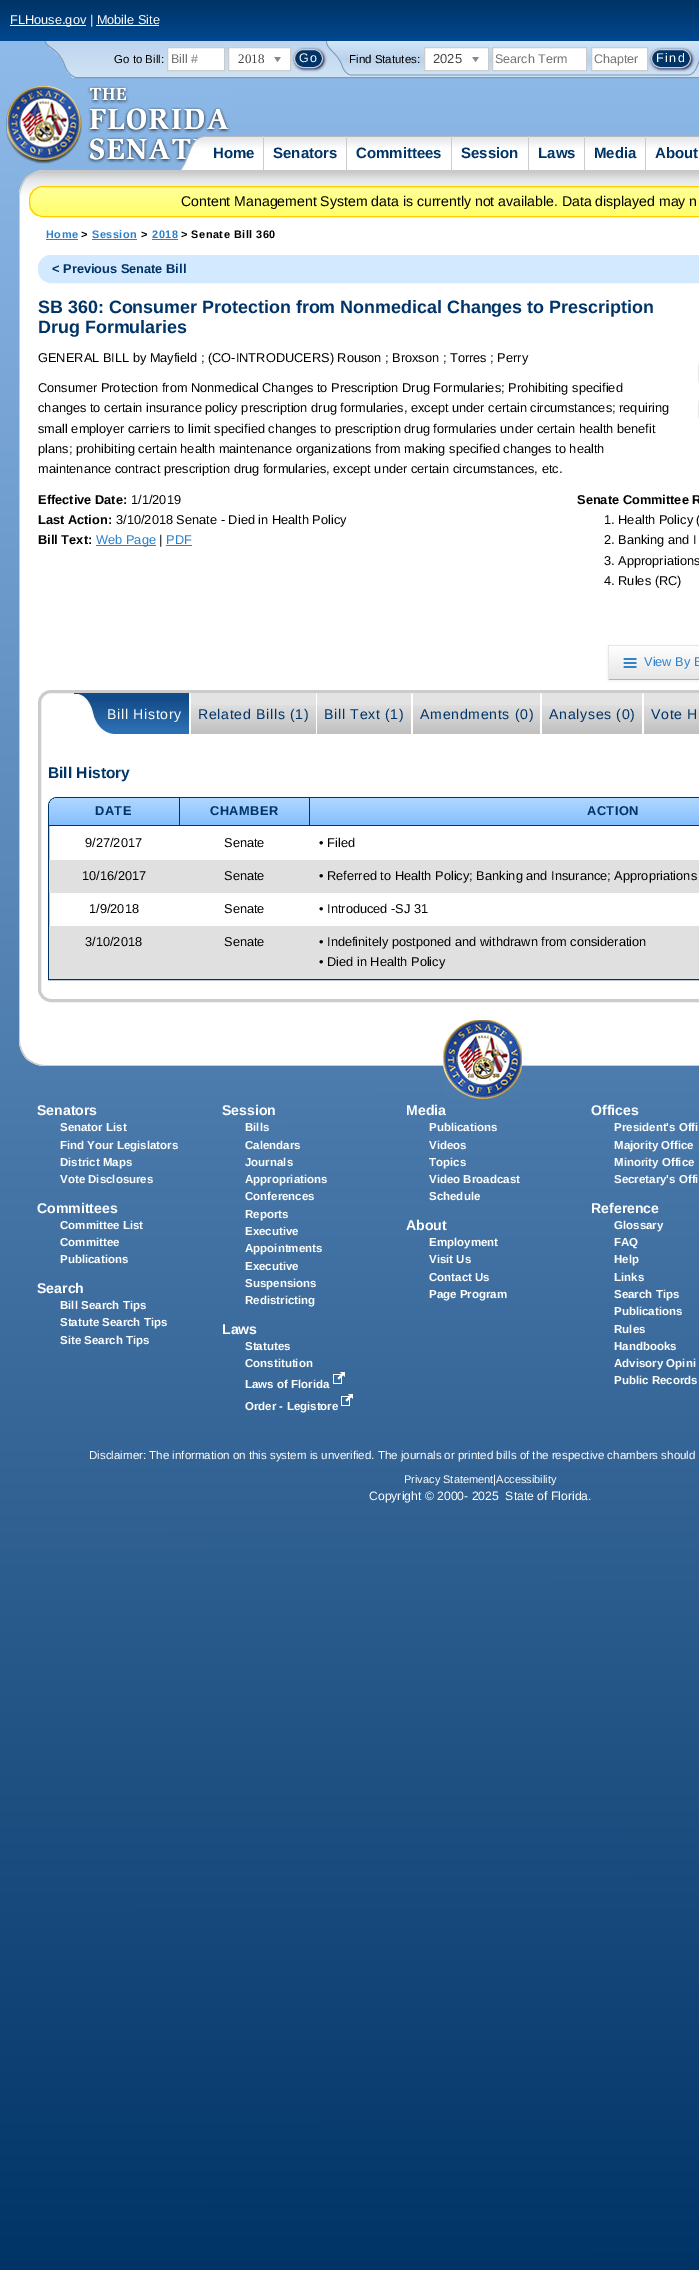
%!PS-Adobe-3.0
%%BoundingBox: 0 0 699 2270
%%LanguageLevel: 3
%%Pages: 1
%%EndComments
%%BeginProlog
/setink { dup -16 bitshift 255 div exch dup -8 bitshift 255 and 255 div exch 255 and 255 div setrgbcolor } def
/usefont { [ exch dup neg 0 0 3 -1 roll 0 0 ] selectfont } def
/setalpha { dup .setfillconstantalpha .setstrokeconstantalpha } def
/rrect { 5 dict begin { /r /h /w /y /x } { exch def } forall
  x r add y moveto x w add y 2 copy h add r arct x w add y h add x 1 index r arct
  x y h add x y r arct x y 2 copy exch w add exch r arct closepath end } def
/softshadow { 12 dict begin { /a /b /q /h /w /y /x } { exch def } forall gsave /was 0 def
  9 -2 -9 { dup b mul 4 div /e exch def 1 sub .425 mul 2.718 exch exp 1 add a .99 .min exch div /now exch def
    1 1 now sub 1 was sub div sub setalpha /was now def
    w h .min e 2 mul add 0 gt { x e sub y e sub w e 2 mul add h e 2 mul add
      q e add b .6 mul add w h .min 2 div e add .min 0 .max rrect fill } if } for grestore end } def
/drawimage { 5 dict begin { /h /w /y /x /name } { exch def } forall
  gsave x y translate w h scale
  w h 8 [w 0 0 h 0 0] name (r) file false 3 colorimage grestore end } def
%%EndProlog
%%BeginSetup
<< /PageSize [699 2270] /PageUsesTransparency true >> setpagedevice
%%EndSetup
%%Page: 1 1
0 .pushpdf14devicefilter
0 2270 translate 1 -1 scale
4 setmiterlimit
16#FFFFFF setink
0 0 699 2270 rectfill
gsave 0 41 moveto 699 41 lineto 699 2270 lineto 0 2270 lineto closepath clip newpath
<< /ShadingType 2 /ColorSpace /DeviceRGB /Coords [349 0 350 2270] /Extend [true true] /Function << /FunctionType 3 /Domain [0 1] /Functions [<< /FunctionType 2 /Domain [0 1] /C0 [0.565 0.737 0.922] /C1 [0.565 0.737 0.922] /N 1 >> << /FunctionType 2 /Domain [0 1] /C0 [0.565 0.737 0.922] /C1 [0 0.2 0.4] /N 1 >>] /Bounds [0.01] /Encode [0 1 0 1] >> >> shfill grestore
gsave 0 0 moveto 699 0 lineto 699 41 lineto 0 41 lineto closepath clip newpath
<< /ShadingType 2 /ColorSpace /DeviceRGB /Coords [480 0 480 41] /Extend [true true] /Function << /FunctionType 2 /Domain [0 1] /C0 [0 0.2 0.4] /C1 [0 0.282 0.561] /N 1 >> >> shfill grestore
10 25 76 1 rectfill
/LiberationSans-Regular 12.8 usefont
10 24 moveto (FLHouse.gov | Mobile Site) show
96 25 63 1 rectfill
gsave
43 41 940 44 rectclip
gsave 46 -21 moveto 46 42 lineto 45 48 58 47 65 66 curveto 67 72 71 78 77 78 curveto 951 78 lineto 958 78 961 72 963 66 curveto 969 47 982 47 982 42 curveto 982 -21 lineto clip newpath
<< /ShadingType 2 /ColorSpace /DeviceRGB /Coords [514 -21 514 78] /Extend [true true] /Function << /FunctionType 3 /Domain [0 1] /Functions [<< /FunctionType 2 /Domain [0 1] /C0 [0.827 0.906 0.965] /C1 [0.729 0.82 0.925] /N 1 >> << /FunctionType 2 /Domain [0 1] /C0 [0.729 0.82 0.925] /C1 [0.741 0.827 0.929] /N 1 >> << /FunctionType 2 /Domain [0 1] /C0 [0.741 0.827 0.929] /C1 [0.816 0.894 0.961] /N 1 >>] /Bounds [0.55 0.59] /Encode [0 1 0 1 0 1] >> >> shfill grestore
16#7A99BB setink
0.9 setlinewidth
45.5 -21 moveto 45.5 41.5 lineto 45.5 47.5 58.5 47.5 65 66 curveto 67 72 71.5 77.5 77 77.5 curveto 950.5 77.5 lineto 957.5 77.5 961 72 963 66 curveto 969.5 47.5 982 47.5 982 41.5 curveto 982 -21 lineto stroke
grestore
/LiberationSans-Regular 11.5 usefont
16#000000 setink
114 63 moveto (Go to Bill:) show
16#FFFFFF setink
167.5 47.5 moveto 224.5 47.5 lineto 224.5 70.5 lineto 167.5 70.5 lineto closepath gsave fill grestore
16#CCCCCC setink
stroke
/LiberationSans-Regular 12.5 usefont
16#757575 setink
171 63 moveto (Bill #) show
gsave 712 41 moveto 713 49 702 51 697 66 curveto 696 70 693 75 688 75 curveto 352 75 lineto 347 75 343 70 342 66 curveto 337 51 327 50 327 41 curveto clip newpath
<< /ShadingType 2 /ColorSpace /DeviceRGB /Coords [520 41 520 75] /Extend [true true] /Function << /FunctionType 3 /Domain [0 1] /Functions [<< /FunctionType 2 /Domain [0 1] /C0 [0.827 0.906 0.965] /C1 [0.729 0.82 0.925] /N 1 >> << /FunctionType 2 /Domain [0 1] /C0 [0.729 0.82 0.925] /C1 [0.741 0.827 0.929] /N 1 >> << /FunctionType 2 /Domain [0 1] /C0 [0.741 0.827 0.929] /C1 [0.816 0.894 0.961] /N 1 >>] /Bounds [0.55 0.59] /Encode [0 1 0 1 0 1] >> >> shfill grestore
16#7A99BB setink
0.7 setlinewidth
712.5 41 moveto 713 49.5 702.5 51 697.5 65.5 curveto 695.5 70.5 693 75 687.5 75 curveto 351.5 75 lineto 347 75 343.5 70.5 342 65.5 curveto 336.5 51 326.5 50 326.5 41 curveto stroke
16#040443 setink
295 50 29 19 9.5 1.5 1 softshadow
16#FFFFFF setink
228.5 47.5 moveto 290.5 47.5 lineto 290.5 70.5 lineto 228.5 70.5 lineto closepath gsave fill grestore
16#CCCCCC setink
1 setlinewidth
stroke
/LiberationSerif-Regular 13 usefont
16#444444 setink
238 63 moveto (2018) show
(img1.raw) 274 57 7 6 drawimage
16#003366 setink
294.5 49.5 28 18 9 rrect gsave fill grestore
16#CCCCCC setink
stroke
/LiberationSans-Regular 12.5 usefont
16#FFFFFF setink
299 62 moveto 1.5 0 (Go) ashow
/LiberationSans-Regular 11.5 usefont
16#000000 setink
349 63 moveto (Find Statutes:) show
16#FFFFFF setink
424.5 47.5 moveto 488.5 47.5 lineto 488.5 70.5 lineto 424.5 70.5 lineto closepath gsave fill grestore
16#CCCCCC setink
stroke
/LiberationSans-Regular 13 usefont
16#444444 setink
433 63 moveto (2025) show
(img1.raw) 472 57 7 6 drawimage
16#FFFFFF setink
492.5 47.5 moveto 586.5 47.5 lineto 586.5 70.5 lineto 492.5 70.5 lineto closepath gsave fill grestore
16#CCCCCC setink
stroke
/LiberationSans-Regular 12.5 usefont
16#757575 setink
495 63 moveto (Search Term) show
16#FFFFFF setink
591.5 47.5 moveto 647.5 47.5 lineto 647.5 70.5 lineto 591.5 70.5 lineto closepath gsave fill grestore
16#CCCCCC setink
stroke
16#757575 setink
594 63 moveto (Chapter) show
16#040443 setink
652 50 40 19 9.5 1.5 1 softshadow
16#003366 setink
651.5 49.5 39 18 9 rrect gsave fill grestore
16#CCCCCC setink
stroke
16#FFFFFF setink
656 62 moveto 1.5 0 (Find) ashow
(img2.raw) 6 86 224 78 drawimage
(img3.raw) 180 136 24 34 drawimage
(img4.raw) 204 136 59 34 drawimage
16#CCCCCC setink
263 136 1 34 rectfill
/LiberationSans-Bold 15 usefont
16#003366 setink
213 158 moveto (Home) show
(img5.raw) 264 136 82 34 drawimage
16#CCCCCC setink
346 136 1 34 rectfill
16#003366 setink
273 158 moveto (Senators) show
(img6.raw) 347 136 104 34 drawimage
16#CCCCCC setink
451 136 1 34 rectfill
16#003366 setink
356 158 moveto (Committees) show
(img7.raw) 452 136 76 34 drawimage
16#CCCCCC setink
528 136 1 34 rectfill
16#003366 setink
461 158 moveto (Session) show
(img8.raw) 529 136 55 34 drawimage
16#CCCCCC setink
584 136 1 34 rectfill
16#003366 setink
538 158 moveto (Laws) show
(img9.raw) 585 136 60 34 drawimage
16#CCCCCC setink
645 136 1 34 rectfill
16#003366 setink
594 158 moveto (Media) show
(img10.raw) 646 136 53 34 drawimage
655 158 moveto (About) show
16#FFFFFF setink
45 170 moveto 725 170 lineto 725 1040 lineto 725 1054.5 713.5 1066 699 1066 curveto 45 1066 lineto 30.5 1066 19 1054.5 19 1040 curveto 19 196 lineto 19 181.5 30.5 170 45 170 curveto closepath fill
(img11.raw) 19 171 680 24 drawimage
16#C8C8C8 setink
45 170 moveto 38 170 31 173 26 177 curveto 27 178 lineto 32 174 38 171 45 171 curveto 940 171 lineto 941 170 lineto closepath fill
16#CCCCCC setink
45 1066 moveto 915 1066 lineto 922 1066 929 1063 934 1059 curveto 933 1058 lineto 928 1062 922 1065 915 1065 curveto 45 1065 lineto 38 1065 32 1062 27 1058 curveto 26 1059 lineto 31 1063 38 1066 45 1066 curveto closepath fill
19 196 moveto 19 1040 lineto 19 1048 22 1054 26 1059 curveto 27 1058 lineto 23 1053 20 1047 20 1040 curveto 20 196 lineto 20 189 23 183 27 178 curveto 26 177 lineto 22 182 19 188 19 196 curveto closepath fill
gsave
29 186 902 31 14 rrect clip newpath
gsave 29 187 moveto 699 187 lineto 699 216 lineto 29 216 lineto closepath clip newpath
<< /ShadingType 2 /ColorSpace /DeviceRGB /Coords [480 187 480 216] /Extend [true true] /Function << /FunctionType 2 /Domain [0 1] /C0 [1 1 0.6] /C1 [1 1 0.42] /N 1 >> >> shfill grestore
grestore
16#FFCC00 setink
29.5 186.5 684 30 13.5 rrect stroke
/LiberationSans-Regular 14.1 usefont
16#000000 setink
181 206 moveto (Content Management System data is currently not available. Data displayed may n) show
/LiberationSans-Bold 10.9 usefont
16#2881CC setink
46 238 moveto 0.5 0 (Home) ashow
46 239 32 1 rectfill
16#000000 setink
81 238 moveto 0.5 0 (>) ashow
16#2881CC setink
92 238 moveto 0.5 0 (Session) ashow
92 239 45 1 rectfill
16#000000 setink
141 238 moveto 0.5 0 (>) ashow
16#2881CC setink
152 238 moveto 0.5 0 (2018) ashow
152 239 26 1 rectfill
16#000000 setink
181 238 moveto 0.5 0 (> Senate Bill 360) ashow
16#D3E9FF setink
38.5 255.5 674 27 12.5 rrect gsave fill grestore
stroke
/LiberationSans-Bold 12.8 usefont
16#003366 setink
52 273 moveto (< Previous Senate Bill) show
/LiberationSans-Bold 17.9 usefont
38 313 moveto (SB 360: Consumer Protection from Nonmedical Changes to Prescription) show
38 333 moveto (Drug Formularies) show
/LiberationSans-Regular 12.8 usefont
16#000000 setink
38 362 moveto (GENERAL BILL by Mayfield ; \(CO-INTRODUCERS\) Rouson ; Broxson ; Torres ; Perry) show
16#040443 setink
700 360 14 26 12 1 1 softshadow
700 397 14 25 12 1 1 softshadow
16#000000 setink
[
    [(Consumer Protection from Nonmedical Changes to Prescription Drug Formularies; Prohibiting specified) 38 392]
    [(changes to certain insurance policy prescription drug formularies, except under certain circumstances; requiring) 38 412]
    [(small employer carriers to limit specified changes to prescription drug formularies under certain health benefit) 38 433]
    [(plans; prohibiting certain health maintenance organizations from making specified changes to health) 38 453]
    [(maintenance contract prescription drug formularies, except under certain circumstances, etc.) 38 473]
] { aload pop moveto show } forall
/LiberationSans-Bold 12.8 usefont
38 504 moveto (Effective Date:) show
/LiberationSans-Regular 12.8 usefont
131 504 moveto (1/1/2019) show
/LiberationSans-Bold 12.8 usefont
38 524 moveto (Last Action:) show
/LiberationSans-Regular 12.8 usefont
116 524 moveto (3/10/2018 Senate - Died in Health Policy) show
/LiberationSans-Bold 12.8 usefont
38 544 moveto (Bill Text:) show
16#2881CC setink
96 545 60 1 rectfill
/LiberationSans-Regular 12.8 usefont
96 544 moveto (Web Page) show
16#000000 setink
159 544 moveto (|) show
16#2881CC setink
166 544 moveto (PDF) show
166 545 26 1 rectfill
/LiberationSans-Bold 12.8 usefont
16#000000 setink
577 504 moveto (Senate Committee R) show
/LiberationSans-Regular 12.8 usefont
[
    [(1. Health Policy \() 604 524]
    [(2. Banking and I) 604 544]
    [(3. Appropriations) 604 565]
    [(4. Rules \(RC\)) 604 585]
] { aload pop moveto show } forall
608 646 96 35 0 1.5 0.05 softshadow
gsave 609 646 moveto 699 646 lineto 699 679 lineto 609 679 lineto closepath clip newpath
<< /ShadingType 2 /ColorSpace /DeviceRGB /Coords [689 646 689 679] /Extend [true true] /Function << /FunctionType 2 /Domain [0 1] /C0 [1 1 1] /C1 [0.902 0.902 0.902] /N 1 >> >> shfill grestore
[
    [608 645 91 1 16#E6E6E6]
    [608 679 91 1 16#B3B3B3]
    [608 645 1 35 16#E6E6E6]
] { aload pop setink rectfill } forall
(img12.raw) 623 658 14 10 drawimage
16#2881CC setink
644 666 moveto (View By B) show
16#CCCCCC setink
3 setlinewidth
39.5 691.5 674 309 11.5 rrect stroke
16#134B87 setink
74 693 115 1 rectfill
(img13.raw) 74 694 115 40 drawimage
/LiberationSans-Regular 14.1 usefont
16#FFFFFF setink
107 719 moveto 0.7 0 (Bill History) ashow
16#E3E3E3 setink
191 693 125 12 rectfill
(img14.raw) 191 705 125 29 drawimage
16#003366 setink
198 719 moveto 0.7 0 (Related Bills \(1\)) ashow
16#E3E3E3 setink
317 693 94 12 rectfill
(img15.raw) 317 705 94 29 drawimage
16#003366 setink
324 719 moveto 0.7 0 (Bill Text \(1\)) ashow
16#E3E3E3 setink
413 693 127 12 rectfill
(img16.raw) 413 705 127 29 drawimage
16#003366 setink
420 719 moveto 0.7 0 (Amendments \(0\)) ashow
16#E3E3E3 setink
542 693 100 12 rectfill
(img17.raw) 542 705 100 29 drawimage
16#003366 setink
549 719 moveto 0.7 0 (Analyses \(0\)) ashow
16#E3E3E3 setink
644 693 55 12 rectfill
(img18.raw) 644 705 55 29 drawimage
16#003366 setink
651 719 moveto 0.7 0 (Vote H) ashow
/LiberationSans-Bold 15.5 usefont
48 778 moveto (Bill History) show
1 setlinewidth
57 797.5 moveto 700 797.5 lineto 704.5 797.5 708.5 801.5 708.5 806 curveto 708.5 979.5 lineto 48.5 979.5 lineto 48.5 806 lineto 48.5 801.5 52.5 797.5 57 797.5 curveto closepath stroke
gsave 58 798 moveto 179 798 lineto 179 825 lineto 49 825 lineto 49 807 lineto 49 802 53 798 58 798 curveto closepath clip newpath
<< /ShadingType 2 /ColorSpace /DeviceRGB /Coords [114 798 114 825] /Extend [true true] /Function << /FunctionType 2 /Domain [0 1] /C0 [0.69 0.847 1] /C1 [0.518 0.745 1] /N 1 >> >> shfill grestore
49 825 650 1 rectfill
/LiberationSans-Bold 12.8 usefont
95 815 moveto 0.5 0 (DATE) ashow
gsave 180 798 moveto 309 798 lineto 309 825 lineto 180 825 lineto closepath clip newpath
<< /ShadingType 2 /ColorSpace /DeviceRGB /Coords [245 798 245 825] /Extend [true true] /Function << /FunctionType 2 /Domain [0 1] /C0 [0.69 0.847 1] /C1 [0.518 0.745 1] /N 1 >> >> shfill grestore
179 798 1 28 rectfill
210 815 moveto 0.5 0 (CHAMBER) ashow
gsave 310 798 moveto 699 798 lineto 699 825 lineto 310 825 lineto closepath clip newpath
<< /ShadingType 2 /ColorSpace /DeviceRGB /Coords [614 798 614 825] /Extend [true true] /Function << /FunctionType 2 /Domain [0 1] /C0 [0.69 0.847 1] /C1 [0.518 0.745 1] /N 1 >> >> shfill grestore
309 798 1 28 rectfill
587 815 moveto 0.5 0 (ACTION) ashow
/LiberationSans-Regular 12.8 usefont
16#000000 setink
[
    [(9/27/2017) 85 847]
    [(Senate) 224 847]
    [(• Filed) 319 847]
] { aload pop moveto show } forall
16#E0E0E0 setink
49 860 650 33 rectfill
16#000000 setink
[
    [(10/16/2017) 82 880]
    [(Senate) 224 880]
    [(• Referred to Health Policy; Banking and Insurance; Appropriations) 319 880]
    [(1/9/2018) 89 913]
    [(Senate) 224 913]
    [(• Introduced -SJ 31) 319 913]
] { aload pop moveto show } forall
16#E0E0E0 setink
49 926 650 53 rectfill
16#000000 setink
[
    [(3/10/2018) 85 946]
    [(Senate) 224 946]
    [(• Indefinitely postponed and withdrawn from consideration) 319 946]
    [(• Died in Health Policy) 319 966]
] { aload pop moveto show } forall
(img19.raw) 443 1020 79 79 drawimage
/LiberationSans-Bold 14.1 usefont
16#FFFFFF setink
37 1115 moveto (Senators) show
/LiberationSans-Bold 11.5 usefont
[
    [(Senator List) 60 1131]
    [(Find Your Legislators) 60 1149]
    [(District Maps) 60 1166]
    [(Vote Disclosures) 60 1183]
] { aload pop moveto show } forall
/LiberationSans-Bold 14.1 usefont
37 1213 moveto (Committees) show
/LiberationSans-Bold 11.5 usefont
[
    [(Committee List) 60 1229]
    [(Committee) 60 1246]
    [(Publications) 60 1263]
] { aload pop moveto show } forall
/LiberationSans-Bold 14.1 usefont
37 1293 moveto (Search) show
/LiberationSans-Bold 11.5 usefont
[
    [(Bill Search Tips) 60 1309]
    [(Statute Search Tips) 60 1326]
    [(Site Search Tips) 60 1344]
] { aload pop moveto show } forall
/LiberationSans-Bold 14.1 usefont
222 1115 moveto (Session) show
/LiberationSans-Bold 11.5 usefont
[
    [(Bills) 245 1131]
    [(Calendars) 245 1149]
    [(Journals) 245 1166]
    [(Appropriations) 245 1183]
    [(Conferences) 245 1200]
    [(Reports) 245 1218]
    [(Executive) 245 1235]
    [(Appointments) 245 1252]
    [(Executive) 245 1270]
    [(Suspensions) 245 1287]
    [(Redistricting) 245 1304]
] { aload pop moveto show } forall
/LiberationSans-Bold 14.1 usefont
222 1334 moveto (Laws) show
/LiberationSans-Bold 11.5 usefont
[
    [(Statutes) 245 1350]
    [(Constitution) 245 1367]
    [(Laws of Florida) 245 1388]
] { aload pop moveto show } forall
(img20.raw) 333 1372 12 12 drawimage
245 1410 moveto (Order - Legistore) show
(img21.raw) 341 1394 12 12 drawimage
/LiberationSans-Bold 14.1 usefont
406 1115 moveto (Media) show
/LiberationSans-Bold 11.5 usefont
[
    [(Publications) 429 1131]
    [(Videos) 429 1149]
    [(Topics) 429 1166]
    [(Video Broadcast) 429 1183]
    [(Schedule) 429 1200]
] { aload pop moveto show } forall
/LiberationSans-Bold 14.1 usefont
406 1230 moveto (About) show
/LiberationSans-Bold 11.5 usefont
[
    [(Employment) 429 1246]
    [(Visit Us) 429 1263]
    [(Contact Us) 429 1281]
    [(Page Program) 429 1298]
] { aload pop moveto show } forall
/LiberationSans-Bold 14.1 usefont
591 1115 moveto (Offices) show
/LiberationSans-Bold 11.5 usefont
[
    [(President's Offi) 614 1131]
    [(Majority Office) 614 1149]
    [(Minority Office) 614 1166]
    [(Secretary's Offi) 614 1183]
] { aload pop moveto show } forall
/LiberationSans-Bold 14.1 usefont
591 1213 moveto (Reference) show
/LiberationSans-Bold 11.5 usefont
[
    [(Glossary) 614 1229]
    [(FAQ) 614 1246]
    [(Help) 614 1263]
    [(Links) 614 1281]
    [(Search Tips) 614 1298]
    [(Publications) 614 1315]
    [(Rules) 614 1333]
    [(Handbooks) 614 1350]
    [(Advisory Opini) 614 1367]
    [(Public Records) 614 1384]
] { aload pop moveto show } forall
/LiberationSans-Regular 11.55 usefont
89 1459 moveto (Disclaimer: The information on this system is unverified. The journals or printed bills of the respective chambers should) show
/LiberationSans-Regular 11 usefont
404 1483 moveto (Privacy Statement Accessibility) show
/LiberationSans-Regular 11.55 usefont
493 1483 moveto (|) show
/LiberationSans-Regular 12.2 usefont
369 1500 moveto (Copyright © 2000- 2025  State of Florida.) show
.poppdf14devicefilter showpage
%%EOF
